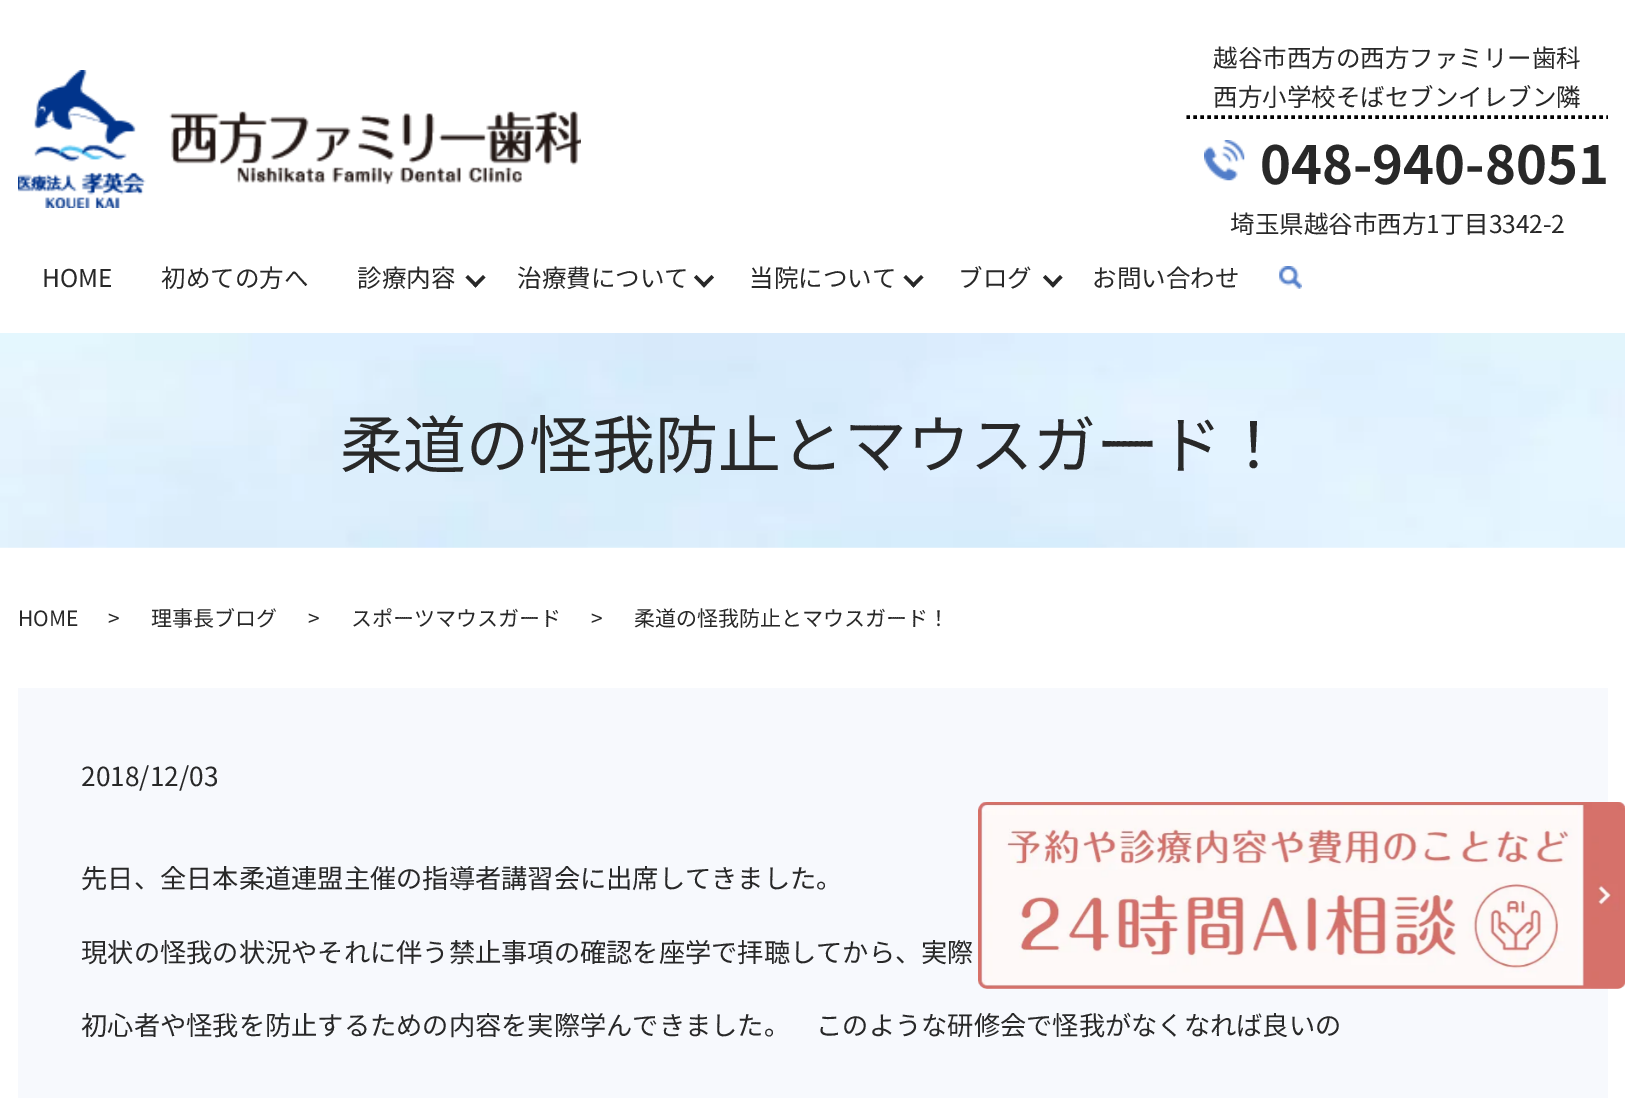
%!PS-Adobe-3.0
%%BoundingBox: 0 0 1625 1098
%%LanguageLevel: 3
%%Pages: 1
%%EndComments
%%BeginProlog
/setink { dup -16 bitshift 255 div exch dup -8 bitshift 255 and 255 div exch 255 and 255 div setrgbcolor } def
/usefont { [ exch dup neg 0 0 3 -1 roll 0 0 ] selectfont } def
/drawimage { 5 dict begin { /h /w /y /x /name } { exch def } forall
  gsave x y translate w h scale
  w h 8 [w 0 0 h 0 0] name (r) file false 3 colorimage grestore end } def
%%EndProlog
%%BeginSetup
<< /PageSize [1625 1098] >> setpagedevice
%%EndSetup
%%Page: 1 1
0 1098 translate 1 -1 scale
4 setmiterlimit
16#FFFFFF setink
0 0 1625 1098 rectfill
(img1.raw) 18 70 563 138 drawimage
16#000000 setink
3.5 setlinewidth
[3.5 3.5] 0 setdash
1186.5 117 moveto 1608 117 lineto stroke
/NotoSansJP-Regular 24.5 usefont
16#282828 setink
1213 67 moveto (越谷市西方の西方ファミリー歯科) show
1213 106 moveto (西方小学校そばセブンイレブン隣) show
(img2.raw) 1204 140 41 41 drawimage
/NotoSansJP-Bold 52.5 usefont
1260 184 moveto (048-940-8051) show
/NotoSansJP-Regular 24.5 usefont
[
    [(埼玉県越谷市西方1丁目3342-2) 1230 233]
    [(HOME) 42 287]
    [(初めての方へ) 161 287]
    [(診療内容) 357 287]
] { aload pop moveto show } forall
485.5 277.5 moveto 475.5 287.5 lineto 473 285 lineto 483 275 lineto closepath fill
478 285 moveto 475.5 287.5 lineto 465.5 277.5 lineto 468 275 lineto closepath fill
517 287 moveto (治療費について) show
714 277.5 moveto 704 287.5 lineto 701.5 285 lineto 711.5 275 lineto closepath fill
706.5 285 moveto 704 287.5 lineto 694 277.5 lineto 696.5 275 lineto closepath fill
749 287 moveto (当院について) show
923.5 277.5 moveto 913.5 287.5 lineto 911 285 lineto 921 275 lineto closepath fill
916 285 moveto 913.5 287.5 lineto 903.5 277.5 lineto 906 275 lineto closepath fill
958 287 moveto (ブログ) show
1062.5 277.5 moveto 1053 287.5 lineto 1050.5 285 lineto 1060 275 lineto closepath fill
1055.5 285 moveto 1053 287.5 lineto 1043 277.5 lineto 1045.5 275 lineto closepath fill
1092 287 moveto (お問い合わせ) show
(img3.raw) 1279 266 23 23 drawimage
(img4.raw) 0 333 1625 215 drawimage
/NotoSansJP-Regular 63 usefont
340 468 moveto (柔道の怪我防止とマウスガード！) show
/NotoSansJP-Regular 21 usefont
[
    [(HOME) 18 626]
    [(>) 108 626]
    [(理事長ブログ) 151 626]
    [(>) 308 626]
    [(スポーツマウスガード) 351 626]
    [(>) 591 626]
    [(柔道の怪我防止とマウスガード！) 634 626]
] { aload pop moveto show } forall
16#F7F9FD setink
18 688 1590 410 rectfill
/NotoSansJP-Regular 26.25 usefont
16#282828 setink
[
    [(2018/12/03) 81 786]
    [(先日、全日本柔道連盟主催の指導者講習会に出席してきました。) 81 888]
    [(現状の怪我の状況やそれに伴う禁止事項の確認を座学で拝聴してから、実際) 81 962]
    [(初心者や怪我を防止するための内容を実際学んできました。　このような研修会で怪我がなくなれば良いの) 81 1035]
] { aload pop moveto show } forall
(img5.raw) 978 802 647 187 drawimage
showpage
%%EOF
